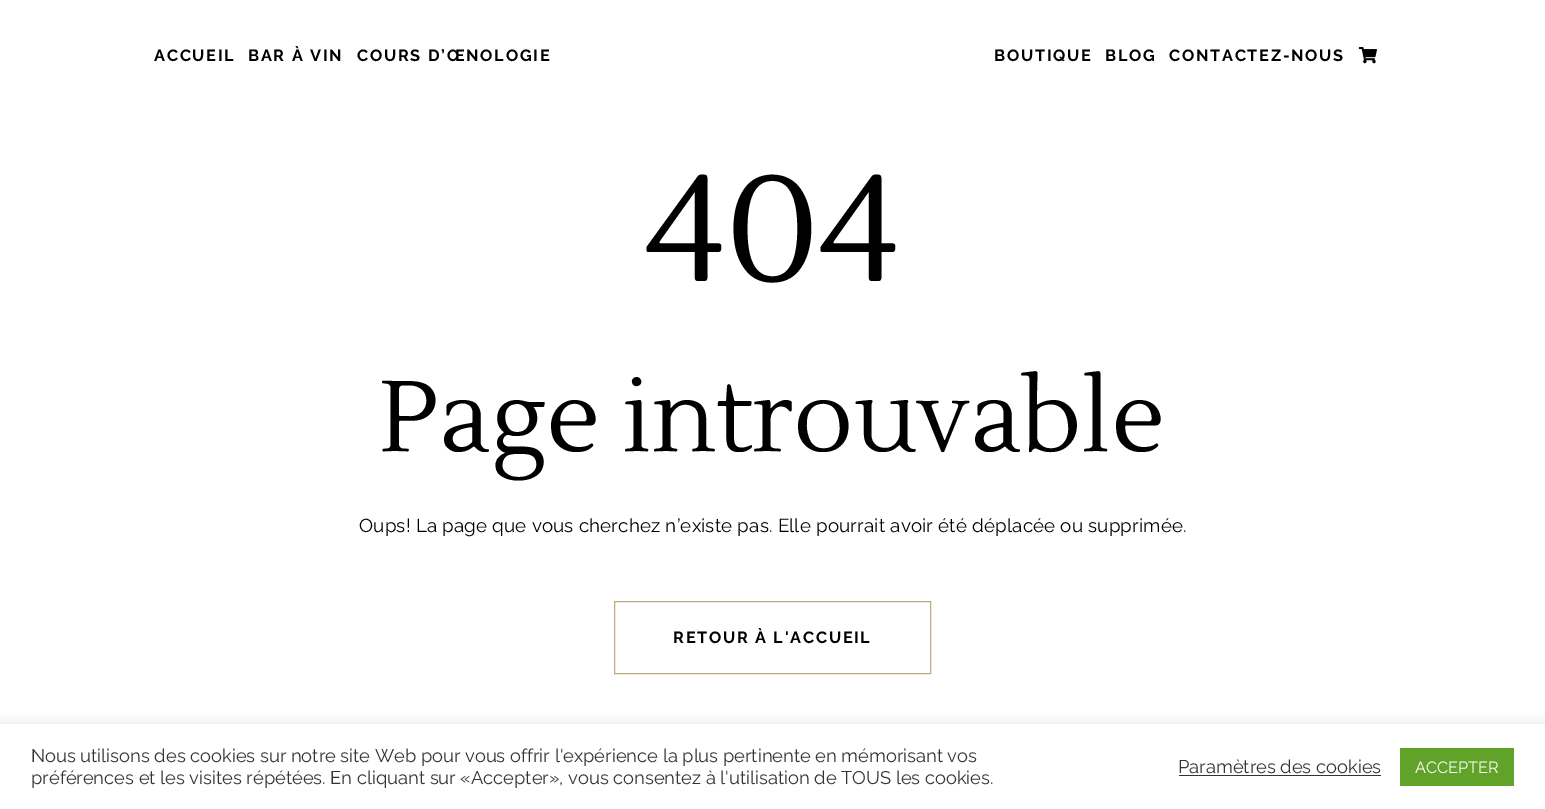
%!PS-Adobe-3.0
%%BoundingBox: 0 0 1545 809
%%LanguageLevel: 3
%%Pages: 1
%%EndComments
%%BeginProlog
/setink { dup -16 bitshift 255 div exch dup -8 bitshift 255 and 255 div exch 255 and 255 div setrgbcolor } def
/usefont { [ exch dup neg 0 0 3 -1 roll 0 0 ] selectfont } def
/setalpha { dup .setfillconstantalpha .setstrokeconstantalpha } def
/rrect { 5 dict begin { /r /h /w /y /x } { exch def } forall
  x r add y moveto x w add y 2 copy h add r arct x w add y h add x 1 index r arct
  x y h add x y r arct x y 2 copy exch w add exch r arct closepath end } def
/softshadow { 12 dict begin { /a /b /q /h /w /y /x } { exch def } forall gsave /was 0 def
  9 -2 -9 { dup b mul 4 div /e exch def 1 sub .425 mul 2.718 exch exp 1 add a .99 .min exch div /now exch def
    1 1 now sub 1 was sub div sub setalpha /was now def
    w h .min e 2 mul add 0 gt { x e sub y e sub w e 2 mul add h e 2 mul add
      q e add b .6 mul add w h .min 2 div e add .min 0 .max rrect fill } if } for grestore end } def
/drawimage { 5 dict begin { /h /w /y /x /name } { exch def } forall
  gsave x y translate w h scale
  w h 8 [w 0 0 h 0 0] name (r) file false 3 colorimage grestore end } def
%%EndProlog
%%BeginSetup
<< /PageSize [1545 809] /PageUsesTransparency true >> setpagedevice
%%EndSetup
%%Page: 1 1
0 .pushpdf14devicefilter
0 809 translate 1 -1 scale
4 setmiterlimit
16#FFFFFF setink
0 0 1545 809 rectfill
/Raleway-Bold 16.25 usefont
16#000000 setink
154 61 moveto 1.75 0 (ACCUEIL) ashow
248 61 moveto 1.75 0 (BAR À VIN) ashow
357 61 moveto 1.75 0 (COURS D’ŒNOLOGIE) ashow
994 61 moveto 1.75 0 (BOUTIQUE) ashow
1105 61 moveto 1.75 0 (BLOG) ashow
1169 61 moveto 1.75 0 (CONTACTEZ-NOUS) ashow
(img1.raw) 1358 47 19 17 drawimage
/Lustria-Regular 150 usefont
645 281 moveto (404) show
/Lustria-Regular 100 usefont
379 451 moveto (Page introuvable) show
/Raleway-Regular 18.75 usefont
359 532 moveto 0.2 0 (Oups! La page que vous cherchez n’existe pas. Elle pourrait avoir été déplacée ou supprimée.) ashow
16#BCAD7B setink
614.5 601.5 316 72 rectstroke
/Raleway-Bold 16.25 usefont
16#000000 setink
673 643 moveto 1.75 0 (RETOUR À L'ACCUEIL) ashow
gsave
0 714 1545 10 rectclip
16#ACABAB setink
0 723 1545 86 0 6 0.3 softshadow
grestore
/Raleway-Regular 18.33 usefont
16#333333 setink
[
    [(Nous utilisons des cookies sur notre site Web pour vous offrir l'expérience la plus pertinente en mémorisant vos) 31 762]
    [(préférences et les visites répétées. En cliquant sur «Accepter», vous consentez à l'utilisation de TOUS les cookies.) 31 784]
    [(Paramètres des cookies) 1178 773]
] { aload pop moveto show } forall
1179 775 202 1 rectfill
16#61A229 setink
1400 748 114 38 rectfill
/Raleway-Regular 16.25 usefont
16#FFFFFF setink
1415 773 moveto (ACCEPTER) show
.poppdf14devicefilter showpage
%%EOF
